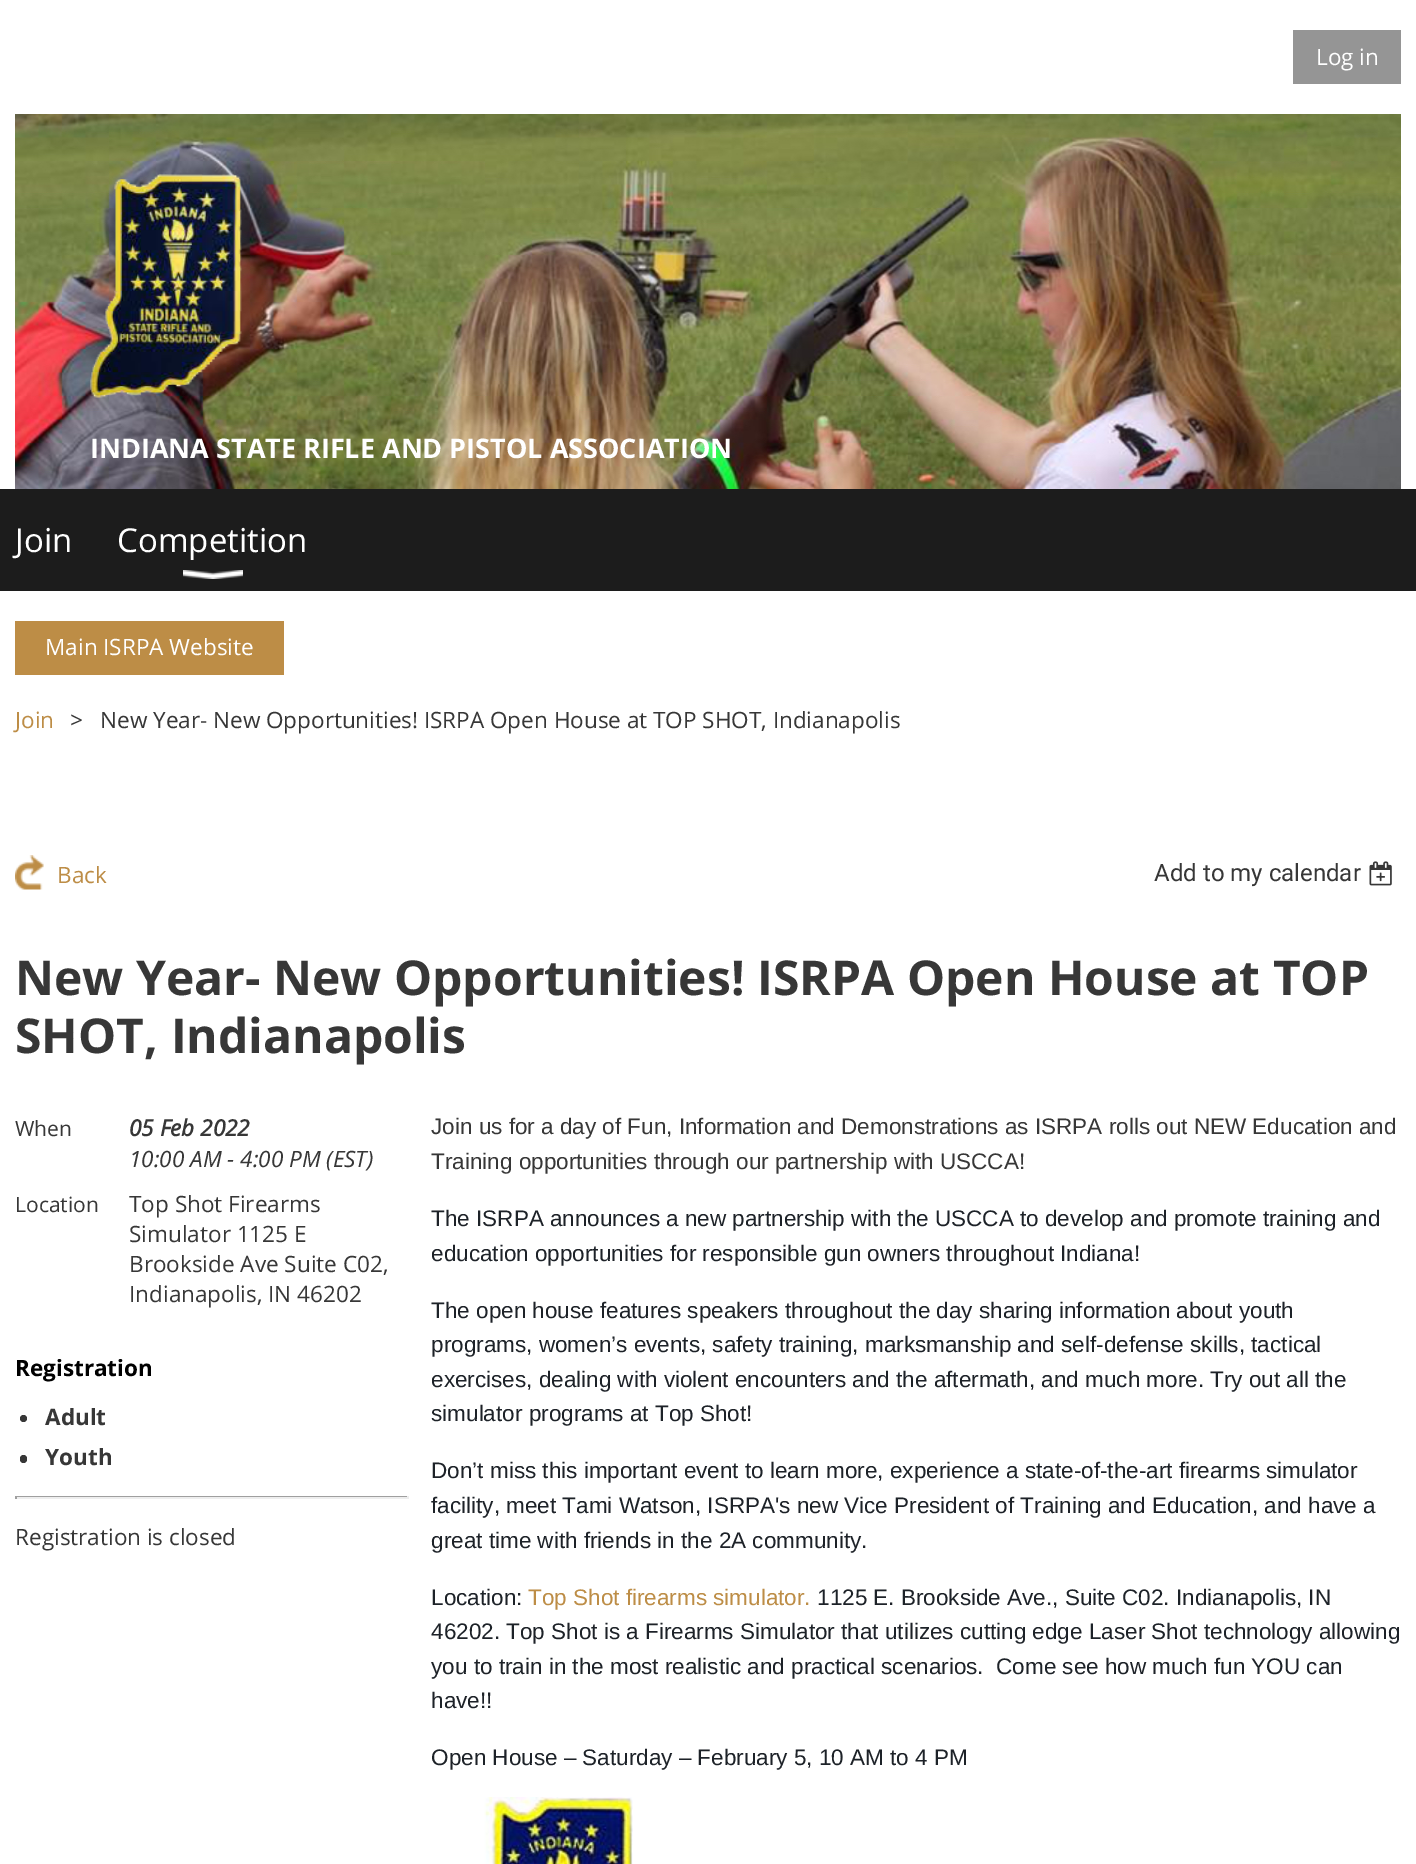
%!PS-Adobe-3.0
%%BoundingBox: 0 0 1416 1864
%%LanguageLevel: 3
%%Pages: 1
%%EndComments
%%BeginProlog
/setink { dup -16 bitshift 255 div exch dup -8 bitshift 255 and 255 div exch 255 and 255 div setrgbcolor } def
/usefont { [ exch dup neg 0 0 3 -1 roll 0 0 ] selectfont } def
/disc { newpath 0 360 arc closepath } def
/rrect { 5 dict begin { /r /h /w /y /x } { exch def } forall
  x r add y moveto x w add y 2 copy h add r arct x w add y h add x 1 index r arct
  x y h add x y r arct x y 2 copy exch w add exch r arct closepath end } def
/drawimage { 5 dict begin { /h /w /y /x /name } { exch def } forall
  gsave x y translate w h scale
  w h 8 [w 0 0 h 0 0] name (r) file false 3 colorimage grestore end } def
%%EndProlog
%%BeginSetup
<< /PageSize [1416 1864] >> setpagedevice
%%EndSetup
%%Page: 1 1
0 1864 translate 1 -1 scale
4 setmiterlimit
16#FFFFFF setink
0 0 1416 1864 rectfill
16#959595 setink
1293 30 108 54 rectfill
/OpenSans-Regular 22.5 usefont
16#FFFFFF setink
1316 65 moveto (Log in) show
(img1.raw) 15 114 1386 375 drawimage
(img2.raw) 90 174 152 224 drawimage
/OpenSans-Bold 27 usefont
90 458 moveto (INDIANA STATE RIFLE AND PISTOL ASSOCIATION) show
16#1C1C1C setink
0 489 1416 102 rectfill
/OpenSans-Regular 33 usefont
16#FFFFFF setink
15 552 moveto (Join) show
117 552 moveto (Competition) show
(img3.raw) 183 570 60 9 drawimage
16#BD8D46 setink
15 621 269 54 rectfill
/OpenSans-Regular 22.5 usefont
16#FFFFFF setink
45 655 moveto (Main ISRPA Website) show
16#BD8D46 setink
15 728 moveto (Join) show
16#373737 setink
70 728 moveto (>) show
100 728 moveto (New Year- New Opportunities! ISRPA Open House at TOP SHOT, Indianapolis) show
(img4.raw) 15 855 29 35 drawimage
16#BD8D46 setink
57 883 moveto (Back) show
/Roboto-Regular 24 usefont
16#373737 setink
1154 881 moveto (Add to my calendar) show
(img5.raw) 1369 861 23 25 drawimage
/OpenSans-Bold 48 usefont
15 995 moveto (New Year- New Opportunities! ISRPA Open House at TOP) show
15 1053 moveto (SHOT, Indianapolis) show
/OpenSans-Regular 21 usefont
15 1136 moveto (When) show
/OpenSans-BoldItalic 22.5 usefont
129 1136 moveto (05 Feb 2022) show
/OpenSans-Italic 22.5 usefont
129 1167 moveto (10:00 AM - 4:00 PM \(EST\)) show
/OpenSans-Regular 21 usefont
15 1212 moveto (Location) show
/OpenSans-Regular 22.5 usefont
[
    [(Top Shot Firearms) 129 1212]
    [(Simulator 1125 E) 129 1242]
    [(Brookside Ave Suite C02,) 129 1272]
    [(Indianapolis, IN 46202) 129 1302]
] { aload pop moveto show } forall
/OpenSans-Bold 22.5 usefont
16#000000 setink
15 1376 moveto (Registration) show
16#373737 setink
23.5 1418.5 3.5 disc fill
45 1425 moveto (Adult) show
20 1455 7 8 3.5 rrect fill
45 1465 moveto (Youth) show
[
    [15 1496 393 1 16#9F9F9F]
    [407 1496 2 3 16#EEEEEE]
    [15 1497 393 2 16#EEEEEE]
    [15 1496 2 3 16#9F9F9F]
] { aload pop setink rectfill } forall
/OpenSans-Regular 22.5 usefont
16#373737 setink
15 1545 moveto (Registration is closed) show
/LiberationSans-Regular 22.5 usefont
431 1134 moveto (Join us for a day of Fun, Information and Demonstrations as ISRPA rolls out NEW Education and) show
431 1169 moveto (Training opportunities through our partnership with USCCA!) show
16#1D2228 setink
[
    [(The ISRPA announces a new partnership with the USCCA to develop and promote training and) 431 1226]
    [(education opportunities for responsible gun owners throughout Indiana!) 431 1261]
    [(The open house features speakers throughout the day sharing information about youth) 431 1318]
    [(programs, women’s events, safety training, marksmanship and self-defense skills, tactical) 431 1352]
    [(exercises, dealing with violent encounters and the aftermath, and much more. Try out all the) 431 1387]
    [(simulator programs at Top Shot!) 431 1421]
    [(Don’t miss this important event to learn more, experience a state-of-the-art firearms simulator) 431 1478]
    [(facility, meet Tami Watson, ISRPA's new Vice President of Training and Education, and have a) 431 1513]
    [(great time with friends in the 2A community.) 431 1548]
    [(Location:) 431 1605]
] { aload pop moveto show } forall
16#BD8D46 setink
528 1605 moveto (Top Shot firearms simulator.) show
16#1D2228 setink
[
    [(1125 E. Brookside Ave., Suite C02. Indianapolis, IN) 817 1605]
    [(46202. Top Shot is a Firearms Simulator that utilizes cutting edge Laser Shot technology allowing) 431 1639]
    [(you to train in the most realistic and practical scenarios.  Come see how much fun YOU can) 431 1674]
    [(have!!) 431 1708]
    [(Open House – Saturday – February 5, 10 AM to 4 PM) 431 1765]
] { aload pop moveto show } forall
(img6.raw) 484 1797 149 67 drawimage
showpage
%%EOF
